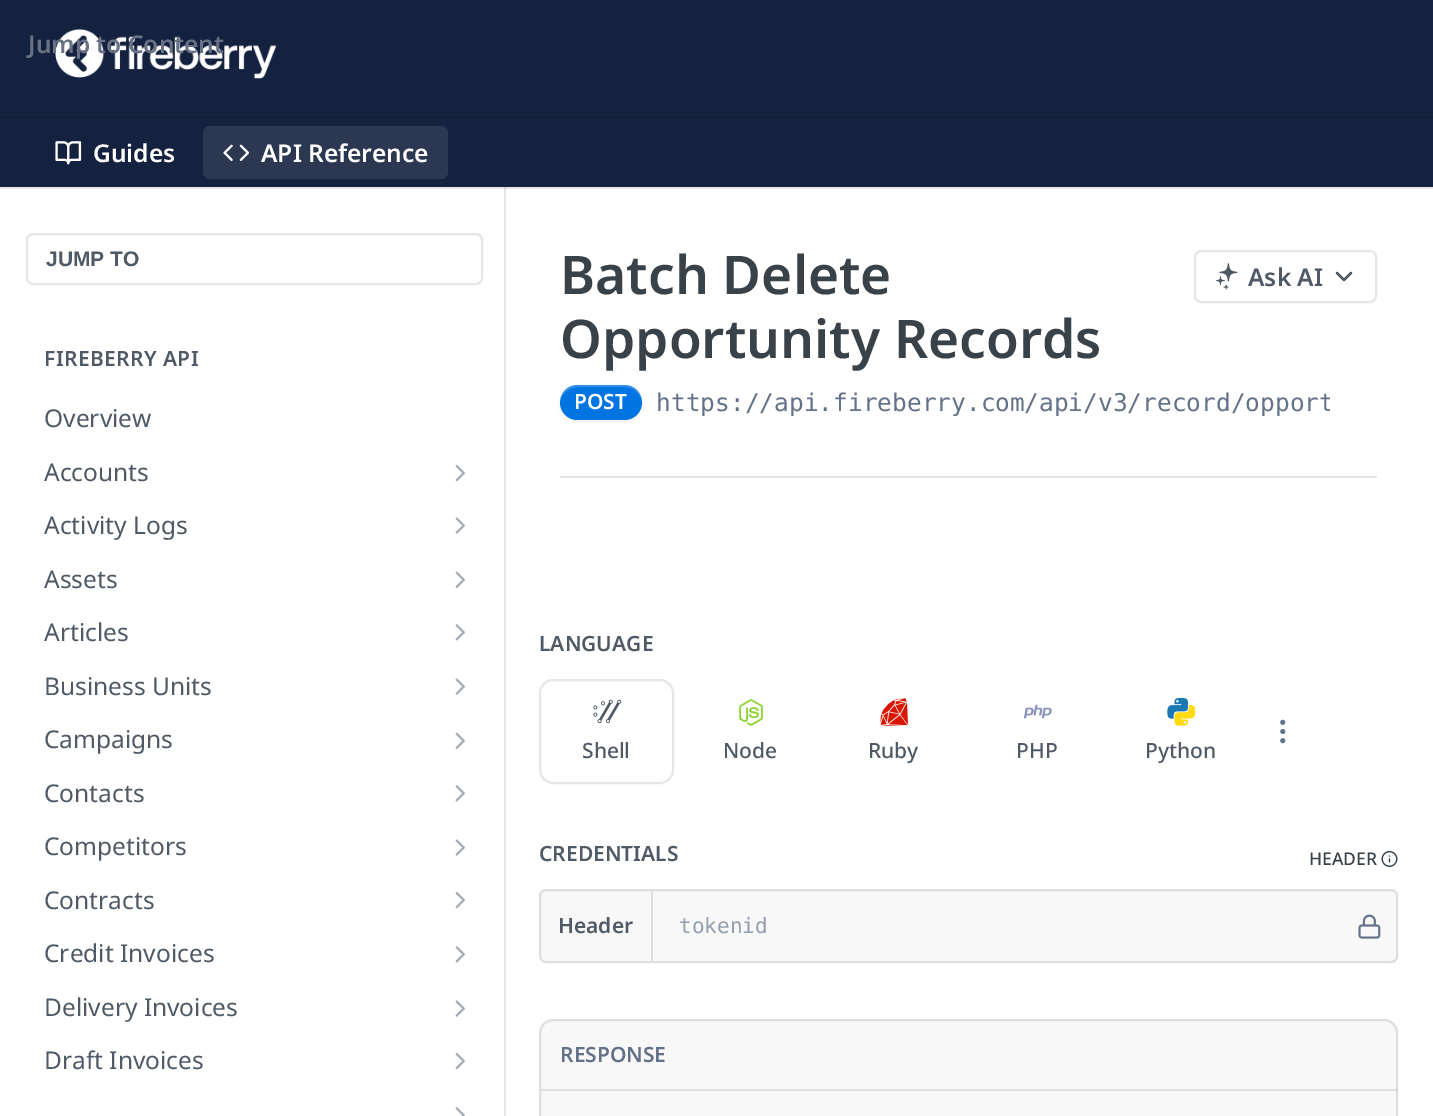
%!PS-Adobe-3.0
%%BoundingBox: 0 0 1433 1116
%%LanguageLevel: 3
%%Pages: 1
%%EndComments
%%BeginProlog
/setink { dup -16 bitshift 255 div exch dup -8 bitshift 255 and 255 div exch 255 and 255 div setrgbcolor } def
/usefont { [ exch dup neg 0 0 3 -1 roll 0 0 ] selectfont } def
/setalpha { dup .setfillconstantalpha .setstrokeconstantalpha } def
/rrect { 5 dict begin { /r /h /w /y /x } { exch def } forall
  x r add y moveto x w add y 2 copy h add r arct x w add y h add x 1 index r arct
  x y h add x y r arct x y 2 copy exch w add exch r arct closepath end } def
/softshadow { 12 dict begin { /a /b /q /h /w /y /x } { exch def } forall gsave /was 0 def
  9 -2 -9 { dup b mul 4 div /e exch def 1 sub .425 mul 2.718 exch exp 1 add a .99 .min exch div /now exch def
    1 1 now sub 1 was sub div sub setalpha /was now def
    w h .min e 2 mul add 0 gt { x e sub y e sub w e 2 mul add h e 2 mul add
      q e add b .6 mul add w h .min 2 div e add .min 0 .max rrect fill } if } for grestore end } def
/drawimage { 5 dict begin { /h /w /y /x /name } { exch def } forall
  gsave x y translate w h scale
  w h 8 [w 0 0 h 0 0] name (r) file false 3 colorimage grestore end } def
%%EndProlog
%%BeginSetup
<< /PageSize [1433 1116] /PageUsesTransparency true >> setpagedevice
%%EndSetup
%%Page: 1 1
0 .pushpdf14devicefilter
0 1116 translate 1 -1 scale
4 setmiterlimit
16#FFFFFF setink
0 0 1433 1116 rectfill
16#E6E6E6 setink
2 187 moveto 504 187 lineto 504 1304 lineto 2 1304 lineto 506 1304 lineto 506 187 lineto closepath fill
0.1 setalpha
[
    [0 187 1433 2 16#000000]
] { aload pop setink rectfill } forall
1 setalpha
[
    [0 0 1433 187 16#15223F]
    [0 116 1433 2 16#131F39]
] { aload pop setink rectfill } forall
(img1.raw) 55 28 222 51 drawimage
/NotoSans-SemiBold 24.5 usefont
16#697184 setink
28 53 moveto (Jump to Content) show
(img2.raw) 55 141 27 24 drawimage
16#FFFFFF setink
93 162 moveto (Guides) show
16#2C3852 setink
203 126 245 53 7 rrect fill
(img3.raw) 223 144 27 17 drawimage
16#FFFFFF setink
261 162 moveto (API Reference) show
16#E6E6E6 setink
2 setlinewidth
27 234 455 50 6 rrect stroke
/LiberationSans-Bold 21 usefont
16#4F5A66 setink
46 266 moveto (JUMP TO) show
/NotoSans-SemiBold 21 usefont
44 366 moveto 0.4 0 (FIREBERRY API) ashow
/NotoSans-Regular 24.5 usefont
44 427 moveto (Overview) show
44 481 moveto (Accounts) show
(img4.raw) 455 465 10 17 drawimage
44 534 moveto (Activity Logs) show
(img5.raw) 455 517 10 17 drawimage
44 588 moveto (Assets) show
(img6.raw) 455 571 10 17 drawimage
44 641 moveto (Articles) show
(img7.raw) 455 624 10 17 drawimage
44 695 moveto (Business Units) show
(img5.raw) 455 678 10 17 drawimage
44 748 moveto (Campaigns) show
(img6.raw) 455 732 10 17 drawimage
44 802 moveto (Contacts) show
(img7.raw) 455 785 10 17 drawimage
44 855 moveto (Competitors) show
(img5.raw) 455 839 10 17 drawimage
44 909 moveto (Contracts) show
(img4.raw) 455 892 10 17 drawimage
44 962 moveto (Credit Invoices) show
(img7.raw) 455 946 10 17 drawimage
44 1016 moveto (Delivery Invoices) show
(img5.raw) 455 1000 10 17 drawimage
44 1069 moveto (Draft Invoices) show
(img4.raw) 455 1053 10 17 drawimage
(img8.raw) 455 1107 10 9 drawimage
16#E6E6E6 setink
560 476 817 2 rectfill
/NotoSans-SemiBold 53.25 usefont
16#384248 setink
560 294 moveto (Batch Delete) show
560 358 moveto (Opportunity Records) show
16#E6E6E6 setink
1195 251 181 51 6 rrect stroke
(img9.raw) 1216 263 22 27 drawimage
/NotoSans-SemiBold 24.5 usefont
16#4F5A66 setink
1248 286 moveto (Ask AI) show
2.3 setlinewidth
1 setlinecap
1 setlinejoin
1337 273 moveto 1344 280 lineto 1351 273 lineto stroke
16#000000 setink
560 387 82 35 17.5 2 0.05 softshadow
16#0074E1 setink
560 385 82 35 17.5 rrect fill
0.2 setalpha
16#FFFFFF setink
578 387 moveto 625 387 lineto 634 387 642 395 642 403 curveto 642 402 lineto 642 393 634 385 624 385 curveto 578 385 lineto 568 385 560 393 560 402 curveto 560 403 lineto 560 395 568 387 578 387 curveto closepath fill
/NotoSans-SemiBold 21 usefont
1 setalpha
574 409 moveto (POST) show
/DejaVuSansMono-Regular 24.5 usefont
16#637288 setink
656 411 moveto (https://api.fireberry.com) show
gsave
656 385 674 35 rectclip
1024 411 moveto (/api/v3/record/opport) show
grestore
/NotoSans-SemiBold 21 usefont
16#4F5A66 setink
539 651 moveto (LANGUAGE) show
(img10.raw) 1280 719 6 25 drawimage
16#E6E6E6 setink
2 setlinewidth
0 setlinecap
0 setlinejoin
540 680 133 103 13 rrect stroke
(img11.raw) 593 699 29 25 drawimage
/NotoSans-Medium 21 usefont
16#4F5A66 setink
582 758 moveto (Shell) show
(img12.raw) 739 699 24 27 drawimage
723 758 moveto (Node) show
(img13.raw) 880 698 29 28 drawimage
868 758 moveto (Ruby) show
(img14.raw) 1023 704 29 15 drawimage
1016 758 moveto (PHP) show
(img15.raw) 1167 697 21 22 drawimage
(img16.raw) 1174 704 22 22 drawimage
1145 758 moveto (Python) show
/NotoSans-SemiBold 21 usefont
539 861 moveto (CREDENTIALS) show
/NotoSans-Medium 17.5 usefont
16#384248 setink
1309 865 moveto (HEADER) show
(img17.raw) 1381 850 17 17 drawimage
16#F8F8F8 setink
539 889 859 74 7 rrect fill
0.1 setalpha
16#000000 setink
540 890 857 72 6 rrect stroke
1 setalpha
16#DFDFDF setink
651 891 2 70 rectfill
/NotoSans-SemiBold 21 usefont
16#4F5A66 setink
558 933 moveto (Header) show
/DejaVuSansMono-Regular 21 usefont
16#939EAE setink
679 933 moveto (tokenid) show
(img18.raw) 1358 914 23 25 drawimage
16#F8F8F8 setink
553 1019 moveto 1384 1019 lineto 1391.5 1019 1398 1025.5 1398 1033 curveto 1398 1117 lineto 539 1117 lineto 539 1033 lineto 539 1025.5 545.5 1019 553 1019 curveto closepath fill
0.1 setalpha
16#000000 setink
540 1020 857 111 13 rrect stroke
541 1089 856 2 rectfill
0.05 setalpha
16#FFFFFF setink
1396 1090 1 1 rectfill
/NotoSans-SemiBold 21 usefont
1 setalpha
16#637288 setink
560 1062 moveto (RESPONSE) show
.poppdf14devicefilter showpage
%%EOF
